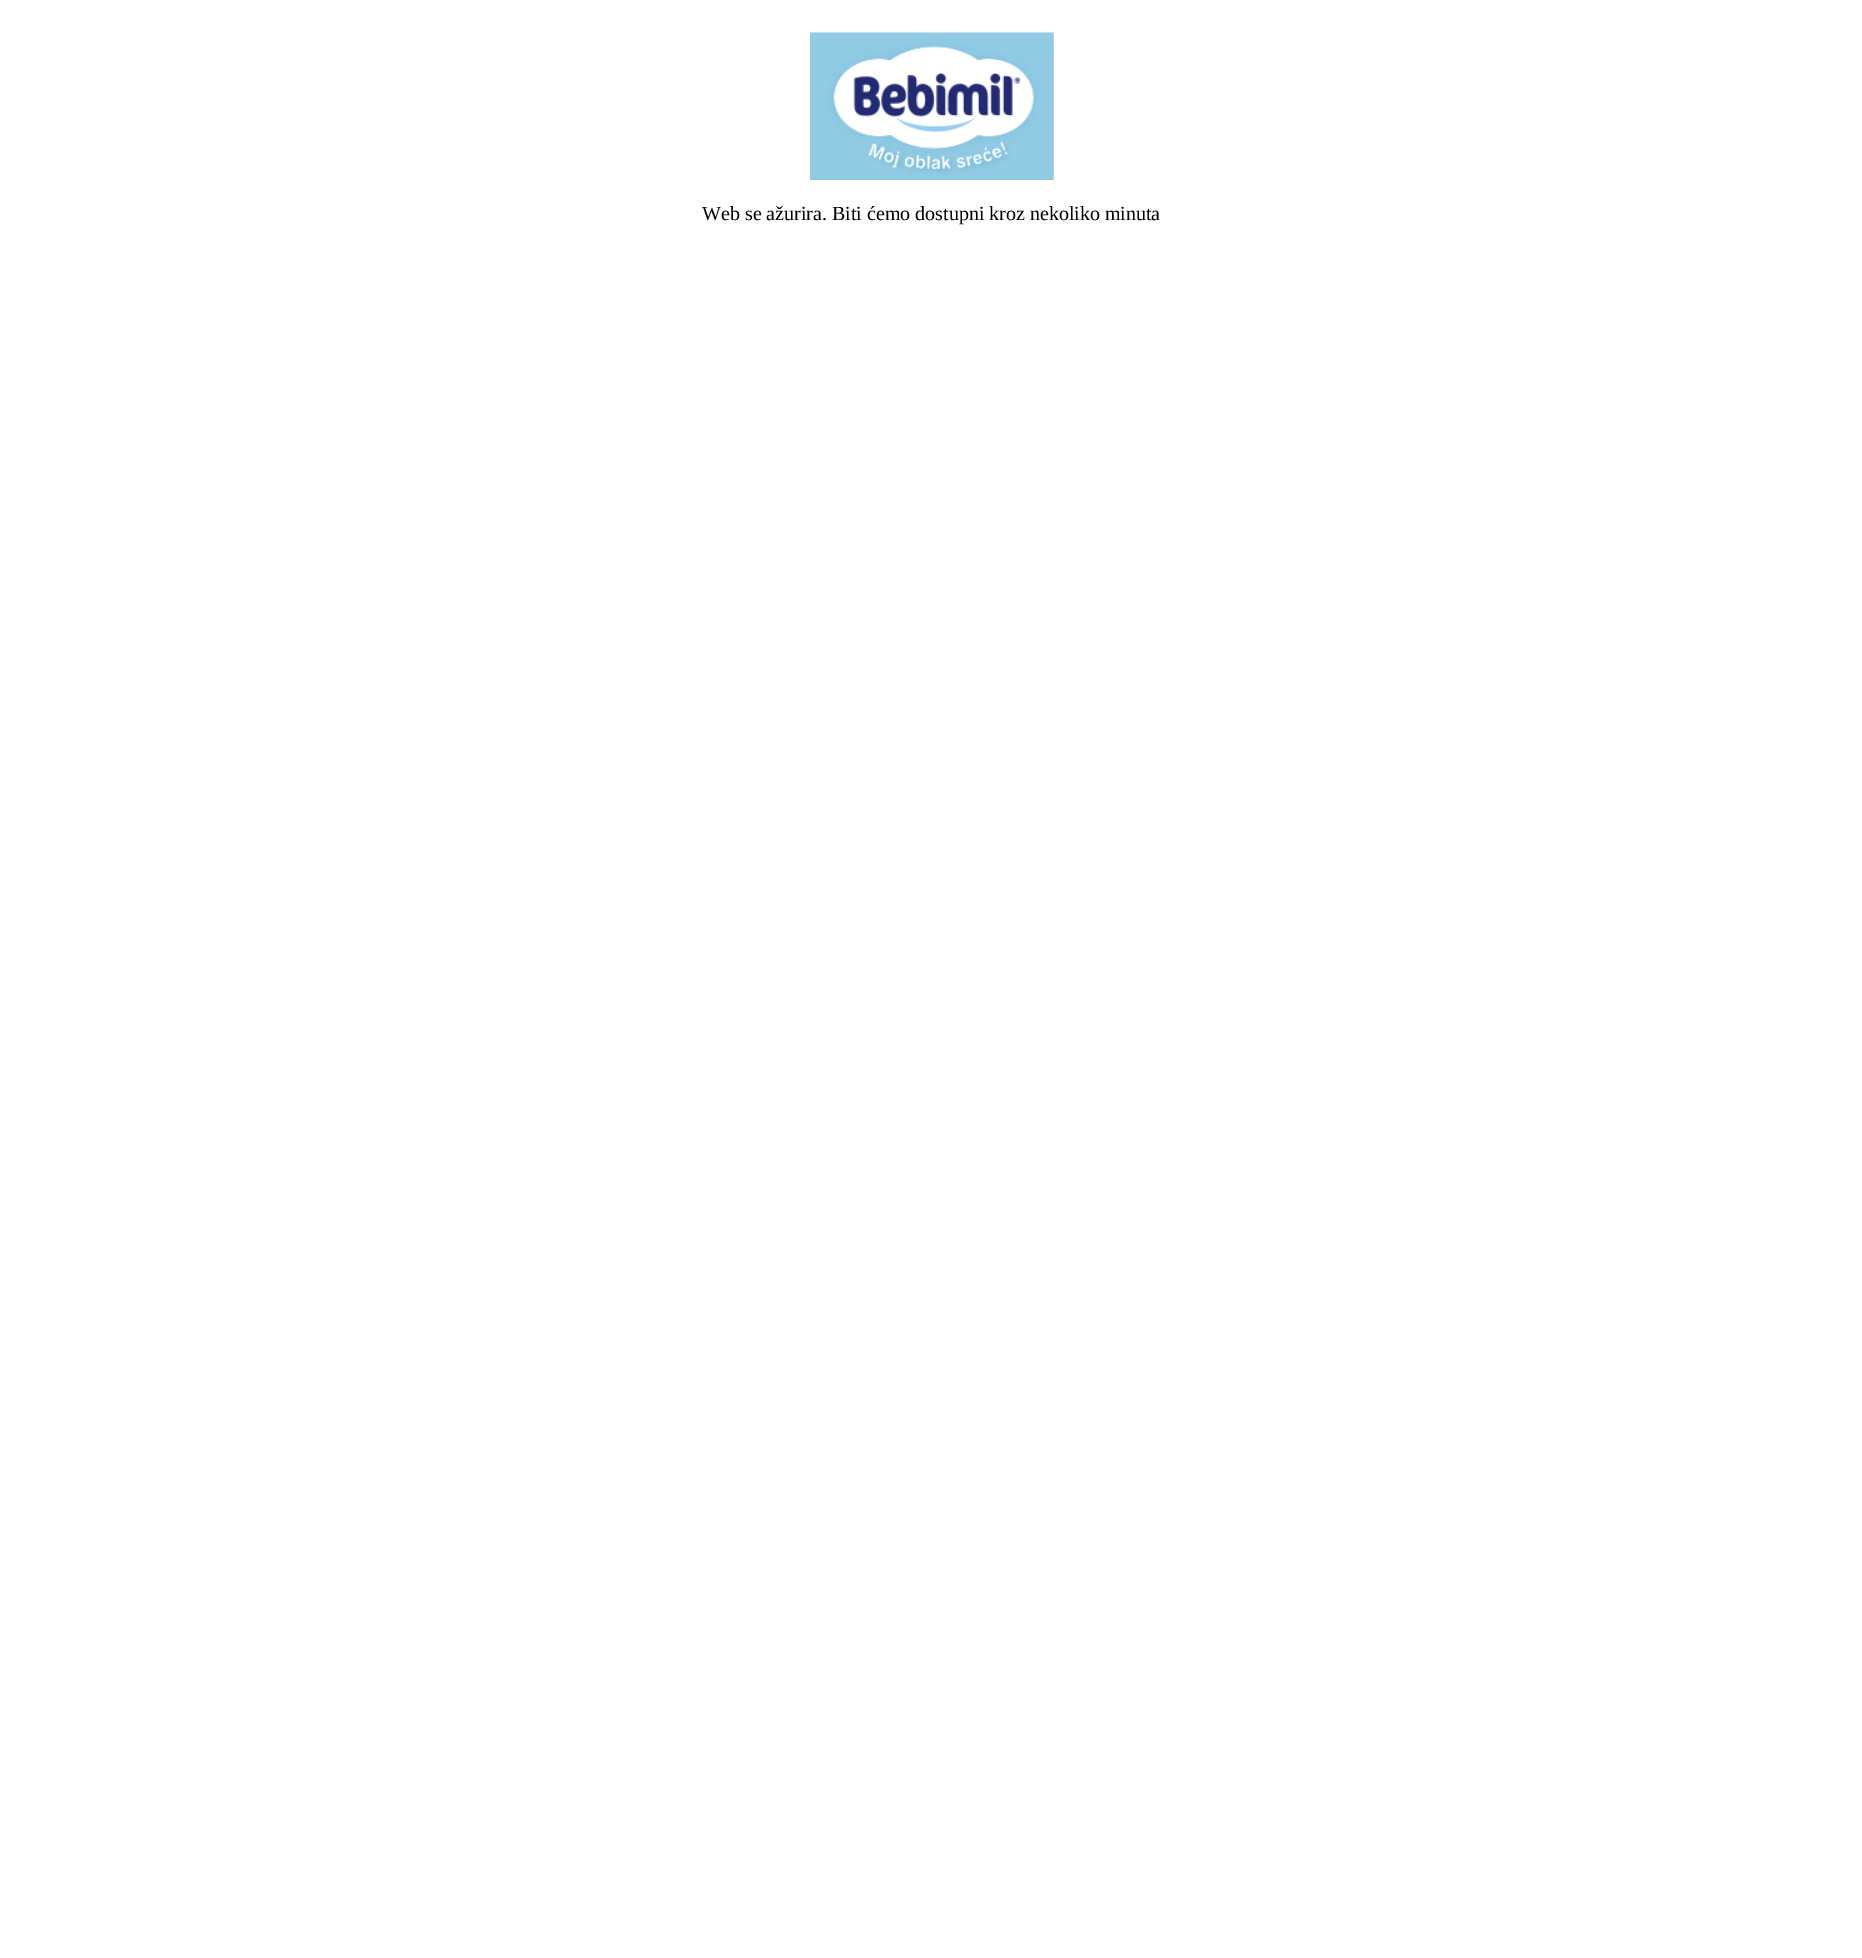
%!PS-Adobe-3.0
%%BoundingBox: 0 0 1862 1958
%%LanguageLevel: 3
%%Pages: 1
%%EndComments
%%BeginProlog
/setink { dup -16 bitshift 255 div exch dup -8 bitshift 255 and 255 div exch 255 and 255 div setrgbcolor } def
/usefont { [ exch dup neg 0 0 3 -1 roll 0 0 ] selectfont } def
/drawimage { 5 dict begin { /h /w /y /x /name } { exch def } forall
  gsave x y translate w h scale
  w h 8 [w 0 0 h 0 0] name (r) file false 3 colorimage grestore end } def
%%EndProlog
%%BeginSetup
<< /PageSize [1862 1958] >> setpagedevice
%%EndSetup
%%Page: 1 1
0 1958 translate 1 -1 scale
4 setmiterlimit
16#FFFFFF setink
0 0 1862 1958 rectfill
(img1.raw) 810 32 244 148 drawimage
/LiberationSerif-Regular 20 usefont
16#000000 setink
702 220 moveto (Web se ažurira. Biti ćemo dostupni kroz nekoliko minuta) show
showpage
%%EOF
